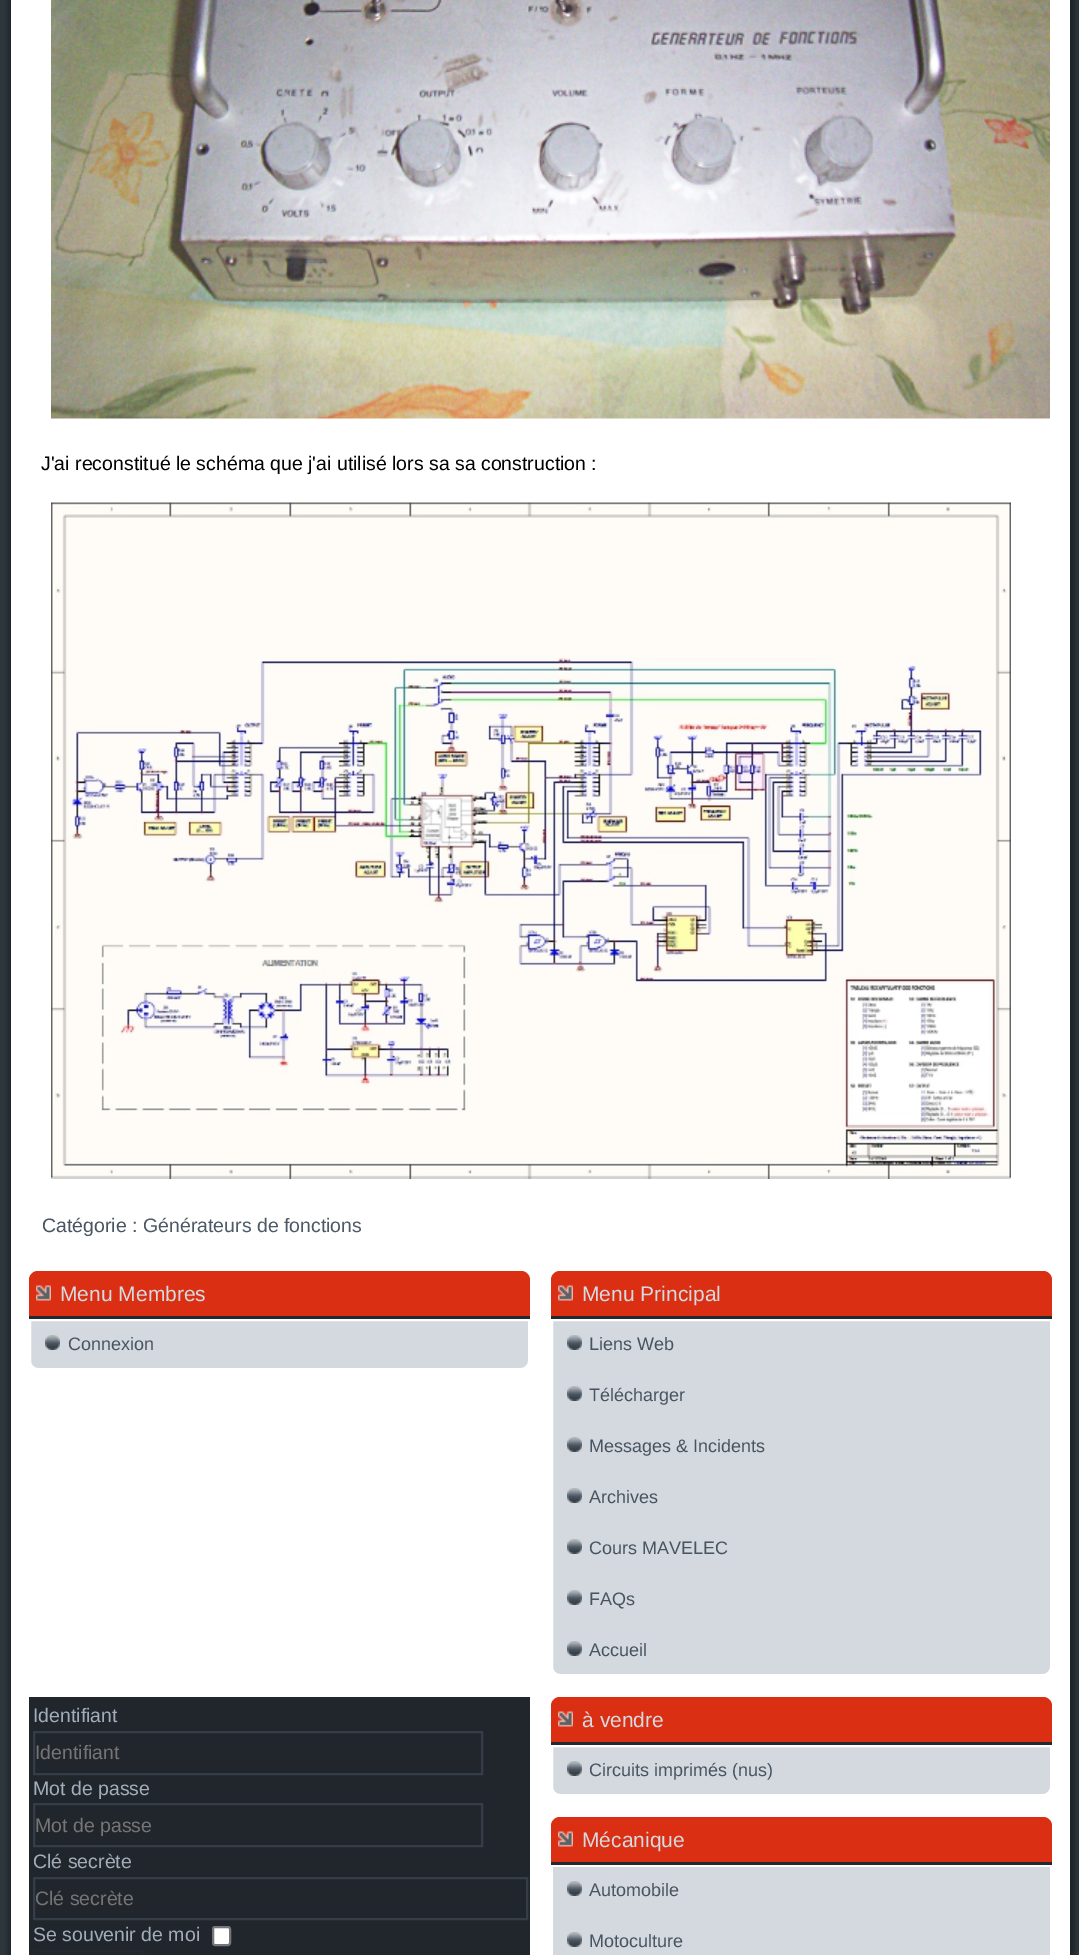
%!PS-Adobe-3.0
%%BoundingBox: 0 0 1079 1955
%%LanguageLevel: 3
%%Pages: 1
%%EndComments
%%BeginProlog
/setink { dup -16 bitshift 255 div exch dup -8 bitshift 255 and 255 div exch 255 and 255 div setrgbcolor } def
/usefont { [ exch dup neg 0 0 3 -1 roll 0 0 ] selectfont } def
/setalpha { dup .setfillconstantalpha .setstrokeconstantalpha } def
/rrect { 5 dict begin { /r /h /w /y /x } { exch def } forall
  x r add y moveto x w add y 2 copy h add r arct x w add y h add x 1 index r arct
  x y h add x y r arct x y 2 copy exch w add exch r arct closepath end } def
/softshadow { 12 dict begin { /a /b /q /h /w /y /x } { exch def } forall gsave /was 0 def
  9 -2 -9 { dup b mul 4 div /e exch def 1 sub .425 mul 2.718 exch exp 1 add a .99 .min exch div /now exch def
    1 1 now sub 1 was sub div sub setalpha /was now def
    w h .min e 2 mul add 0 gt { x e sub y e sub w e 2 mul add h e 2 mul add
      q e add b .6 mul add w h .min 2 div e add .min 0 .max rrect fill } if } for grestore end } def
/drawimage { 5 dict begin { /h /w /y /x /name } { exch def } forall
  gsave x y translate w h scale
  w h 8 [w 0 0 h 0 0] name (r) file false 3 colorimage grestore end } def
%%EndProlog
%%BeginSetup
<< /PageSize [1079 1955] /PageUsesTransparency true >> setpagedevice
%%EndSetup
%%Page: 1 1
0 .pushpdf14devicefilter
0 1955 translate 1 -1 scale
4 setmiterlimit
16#2E363D setink
0 0 1079 1955 rectfill
16#000000 setink
9 -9 1065 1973 0 3 0.4 softshadow
16#FFFFFF setink
11 0 1059 1955 rectfill
(img1.raw) 51 0 999 419 drawimage
/LiberationSans-Regular 19.5 usefont
16#000000 setink
41 470 moveto (J'ai reconstitué le schéma que j'ai utilisé lors sa sa construction :) show
(img2.raw) 51 502 960 677 drawimage
16#485460 setink
42 1232 moveto (Catégorie :) show
16#4D5966 setink
143 1232 moveto (Générateurs de fonctions) show
16#DB2F14 setink
38 1271 moveto 521 1271 lineto 526 1271 530 1275 530 1280 curveto 530 1319 lineto 29 1319 lineto 29 1280 lineto 29 1275 33 1271 38 1271 curveto closepath fill
16#23292F setink
29 1316 501 3 rectfill
(img3.raw) 36 1285 15 16 drawimage
/LiberationSans-Regular 21 usefont
16#D6DBE0 setink
60 1301 moveto (Menu Membres) show
16#D3D9DE setink
30 1320 moveto 529 1320 lineto 529 1361 lineto 529 1365.5 525.5 1369 521 1369 curveto 38 1369 lineto 33.5 1369 30 1365.5 30 1361 curveto closepath gsave fill grestore
16#FFFFFF setink
2 setlinewidth
stroke
(img4.raw) 45 1335 15 15 drawimage
/LiberationSans-Regular 18 usefont
16#485460 setink
68 1350 moveto (Connexion) show
16#DB2F14 setink
560 1271 moveto 1043 1271 lineto 1048 1271 1052 1275 1052 1280 curveto 1052 1319 lineto 551 1319 lineto 551 1280 lineto 551 1275 555 1271 560 1271 curveto closepath fill
16#23292F setink
551 1316 501 3 rectfill
(img5.raw) 558 1285 15 16 drawimage
/LiberationSans-Regular 21 usefont
16#D6DBE0 setink
582 1301 moveto (Menu Principal) show
16#D3D9DE setink
552 1320 moveto 1051 1320 lineto 1051 1667 lineto 1051 1671.5 1047.5 1675 1043 1675 curveto 560 1675 lineto 555.5 1675 552 1671.5 552 1667 curveto closepath gsave fill grestore
16#FFFFFF setink
stroke
(img6.raw) 567 1335 15 15 drawimage
/LiberationSans-Regular 18 usefont
16#485460 setink
589 1350 moveto (Liens Web) show
(img6.raw) 567 1386 15 15 drawimage
589 1401 moveto (Télécharger) show
(img6.raw) 567 1437 15 15 drawimage
589 1452 moveto (Messages & Incidents) show
(img6.raw) 567 1488 15 15 drawimage
589 1503 moveto (Archives) show
(img6.raw) 567 1539 15 15 drawimage
589 1554 moveto (Cours MAVELEC) show
(img6.raw) 567 1590 15 15 drawimage
589 1605 moveto (FAQs) show
(img6.raw) 567 1641 15 15 drawimage
589 1656 moveto (Accueil) show
16#21262C setink
29 1697 501 258 rectfill
/LiberationSans-Regular 19.5 usefont
16#A2ADB9 setink
33 1722 moveto (Identifiant) show
16#353D46 setink
34 1732 448 42 rectstroke
16#757575 setink
35 1759 moveto (Identifiant) show
16#A2ADB9 setink
33 1795 moveto (Mot de passe) show
16#353D46 setink
34 1804 448 42 rectstroke
16#757575 setink
35 1832 moveto (Mot de passe) show
16#A2ADB9 setink
33 1868 moveto (Clé secrète) show
16#353D46 setink
34 1878 493 41 rectstroke
16#757575 setink
35 1905 moveto (Clé secrète) show
16#A2ADB9 setink
33 1941 moveto (Se souvenir de moi) show
16#FFFFFF setink
213 1927 17 18 2 rrect gsave fill grestore
16#767676 setink
stroke
16#23292F setink
34 1951 109 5 rectstroke
16#DB2F14 setink
560 1697 moveto 1043 1697 lineto 1048 1697 1052 1701 1052 1706 curveto 1052 1745 lineto 551 1745 lineto 551 1706 lineto 551 1701 555 1697 560 1697 curveto closepath fill
16#23292F setink
551 1742 501 3 rectfill
(img5.raw) 558 1711 15 16 drawimage
/LiberationSans-Regular 21 usefont
16#D6DBE0 setink
582 1727 moveto (à vendre) show
16#D3D9DE setink
552 1746 moveto 1051 1746 lineto 1051 1787 lineto 1051 1791.5 1047.5 1795 1043 1795 curveto 560 1795 lineto 555.5 1795 552 1791.5 552 1787 curveto closepath gsave fill grestore
16#FFFFFF setink
stroke
(img6.raw) 567 1761 15 15 drawimage
/LiberationSans-Regular 18 usefont
16#485460 setink
589 1776 moveto (Circuits imprimés \(nus\)) show
16#DB2F14 setink
560 1817 moveto 1043 1817 lineto 1048 1817 1052 1821 1052 1826 curveto 1052 1865 lineto 551 1865 lineto 551 1826 lineto 551 1821 555 1817 560 1817 curveto closepath fill
16#23292F setink
551 1862 501 3 rectfill
(img5.raw) 558 1831 15 16 drawimage
/LiberationSans-Regular 21 usefont
16#D6DBE0 setink
582 1847 moveto (Mécanique) show
16#D3D9DE setink
553 1867 497 88 rectfill
(img6.raw) 567 1881 15 15 drawimage
/LiberationSans-Regular 18 usefont
16#485460 setink
589 1896 moveto (Automobile) show
(img6.raw) 567 1932 15 15 drawimage
589 1947 moveto (Motoculture) show
.poppdf14devicefilter showpage
%%EOF
